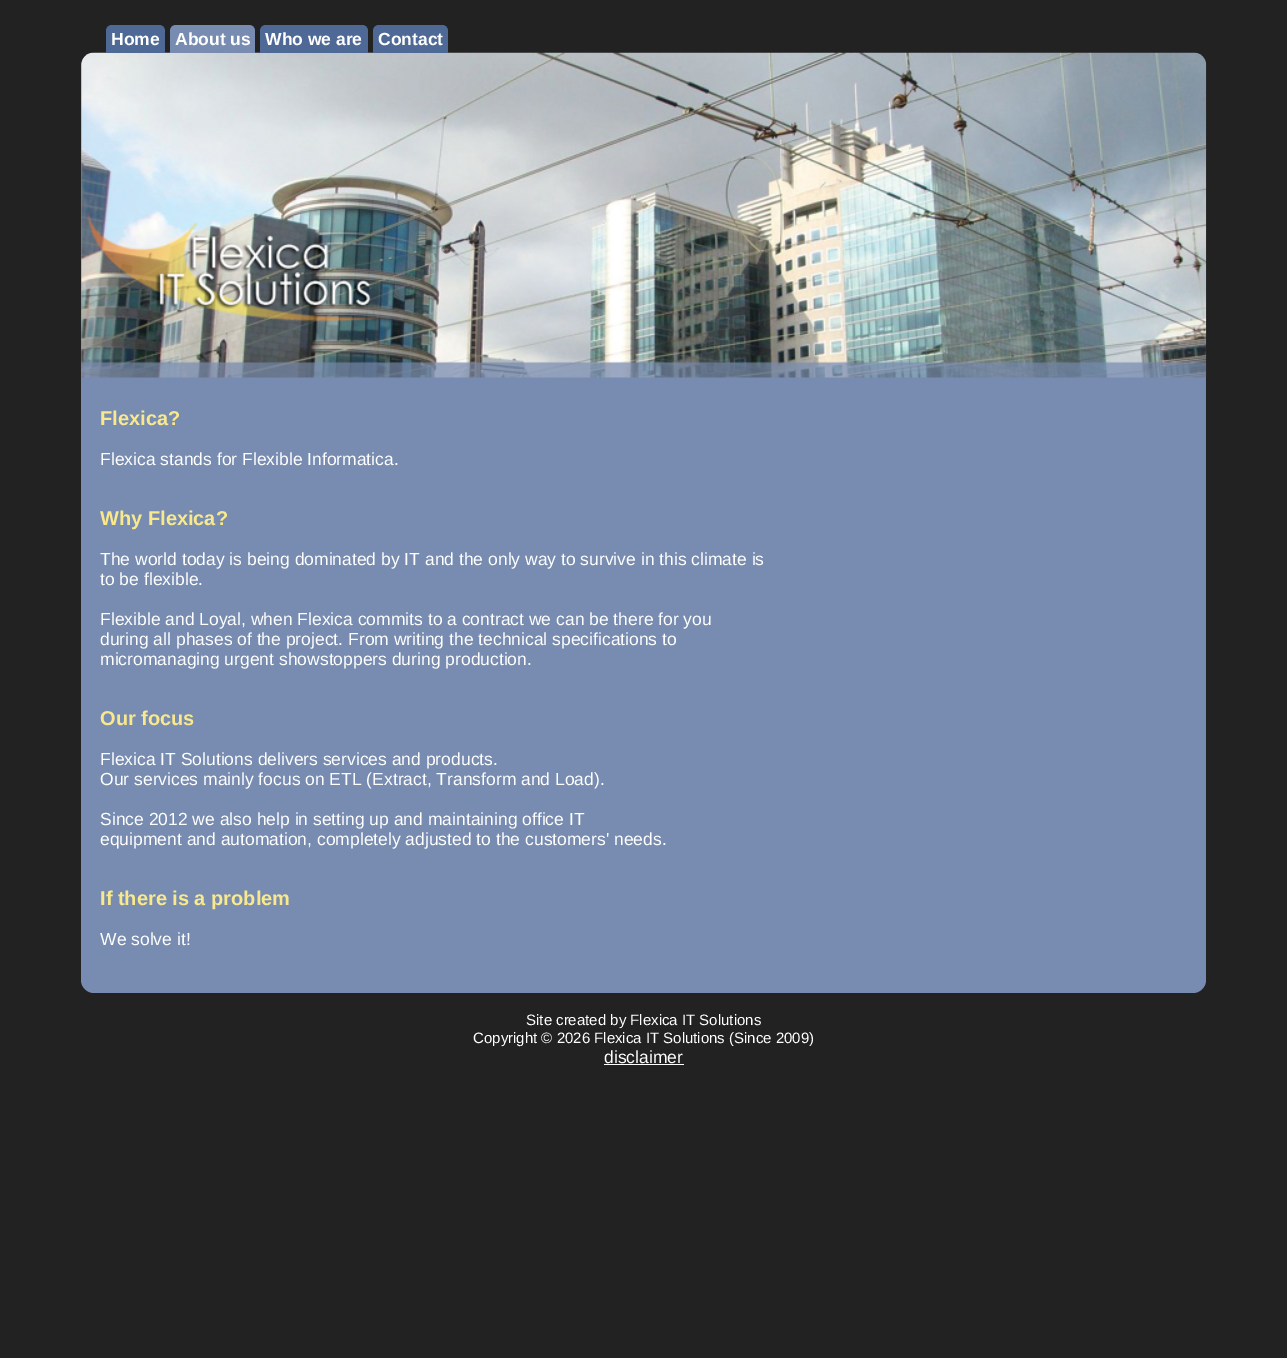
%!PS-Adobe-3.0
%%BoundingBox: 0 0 1287 1358
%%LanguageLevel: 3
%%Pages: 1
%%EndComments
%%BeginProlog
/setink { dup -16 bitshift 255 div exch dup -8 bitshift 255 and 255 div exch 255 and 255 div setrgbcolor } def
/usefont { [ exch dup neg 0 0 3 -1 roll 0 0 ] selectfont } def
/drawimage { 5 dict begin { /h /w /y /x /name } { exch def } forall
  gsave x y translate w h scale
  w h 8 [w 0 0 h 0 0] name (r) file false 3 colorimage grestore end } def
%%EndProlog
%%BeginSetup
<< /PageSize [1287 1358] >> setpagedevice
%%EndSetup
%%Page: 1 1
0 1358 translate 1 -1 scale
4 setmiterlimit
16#222222 setink
0 0 1287 1358 rectfill
16#778CB0 setink
94 53 moveto 1193 53 lineto 1200 53 1206 59 1206 66 curveto 1206 383 lineto 81 383 lineto 81 66 lineto 81 59 87 53 94 53 curveto closepath fill
(img1.raw) 81 52 1126 326 drawimage
16#4F6997 setink
112 25 moveto 159 25 lineto 162.5 25 165 27.5 165 31 curveto 165 53 lineto 106 53 lineto 106 31 lineto 106 27.5 108.5 25 112 25 curveto closepath fill
/LiberationSans-Bold 17.5 usefont
16#FFFFFF setink
111 45 moveto (Home) show
16#778CB0 setink
176 25 moveto 249 25 lineto 252.5 25 255 27.5 255 31 curveto 255 53 lineto 170 53 lineto 170 31 lineto 170 27.5 172.5 25 176 25 curveto closepath fill
16#FFFFFF setink
175 45 moveto (About us) show
16#4F6997 setink
266 25 moveto 362 25 lineto 365.5 25 368 27.5 368 31 curveto 368 53 lineto 260 53 lineto 260 31 lineto 260 27.5 262.5 25 266 25 curveto closepath fill
16#FFFFFF setink
265 45 moveto (Who we are) show
16#4F6997 setink
379 25 moveto 442 25 lineto 445.5 25 448 27.5 448 31 curveto 448 53 lineto 373 53 lineto 373 31 lineto 373 27.5 375.5 25 379 25 curveto closepath fill
16#FFFFFF setink
378 45 moveto (Contact) show
16#778CB0 setink
81 383 moveto 1206 383 lineto 1206 980 lineto 1206 987 1200 993 1193 993 curveto 94 993 lineto 87 993 81 987 81 980 curveto closepath fill
/LiberationSans-Bold 20 usefont
16#F9E98C setink
100 425 moveto (Flexica?) show
/LiberationSans-Regular 17.5 usefont
16#FFFFFF setink
100 465 moveto (Flexica stands for Flexible Informatica.) show
/LiberationSans-Bold 20 usefont
16#F9E98C setink
100 525 moveto (Why Flexica?) show
/LiberationSans-Regular 17.5 usefont
16#FFFFFF setink
[
    [(The world today is being dominated by IT and the only way to survive in this climate is) 100 565]
    [(to be flexible.) 100 585]
    [(Flexible and Loyal, when Flexica commits to a contract we can be there for you) 100 625]
    [(during all phases of the project. From writing the technical specifications to) 100 645]
    [(micromanaging urgent showstoppers during production.) 100 665]
] { aload pop moveto show } forall
/LiberationSans-Bold 20 usefont
16#F9E98C setink
100 725 moveto (Our focus) show
/LiberationSans-Regular 17.5 usefont
16#FFFFFF setink
[
    [(Flexica IT Solutions delivers services and products.) 100 765]
    [(Our services mainly focus on ETL \(Extract, Transform and Load\).) 100 785]
    [(Since 2012 we also help in setting up and maintaining office IT) 100 825]
    [(equipment and automation, completely adjusted to the customers' needs.) 100 845]
] { aload pop moveto show } forall
/LiberationSans-Bold 20 usefont
16#F9E98C setink
100 905 moveto (If there is a problem) show
/LiberationSans-Regular 17.5 usefont
16#FFFFFF setink
100 945 moveto (We solve it!) show
/LiberationSans-Regular 15 usefont
526 1025 moveto (Site created by Flexica IT Solutions) show
473 1043 moveto (Copyright © 2026 Flexica IT Solutions \(Since 2009\)) show
/LiberationSans-Regular 17.5 usefont
604 1063 moveto (disclaimer) show
604 1064 80 1 rectfill
showpage
%%EOF
